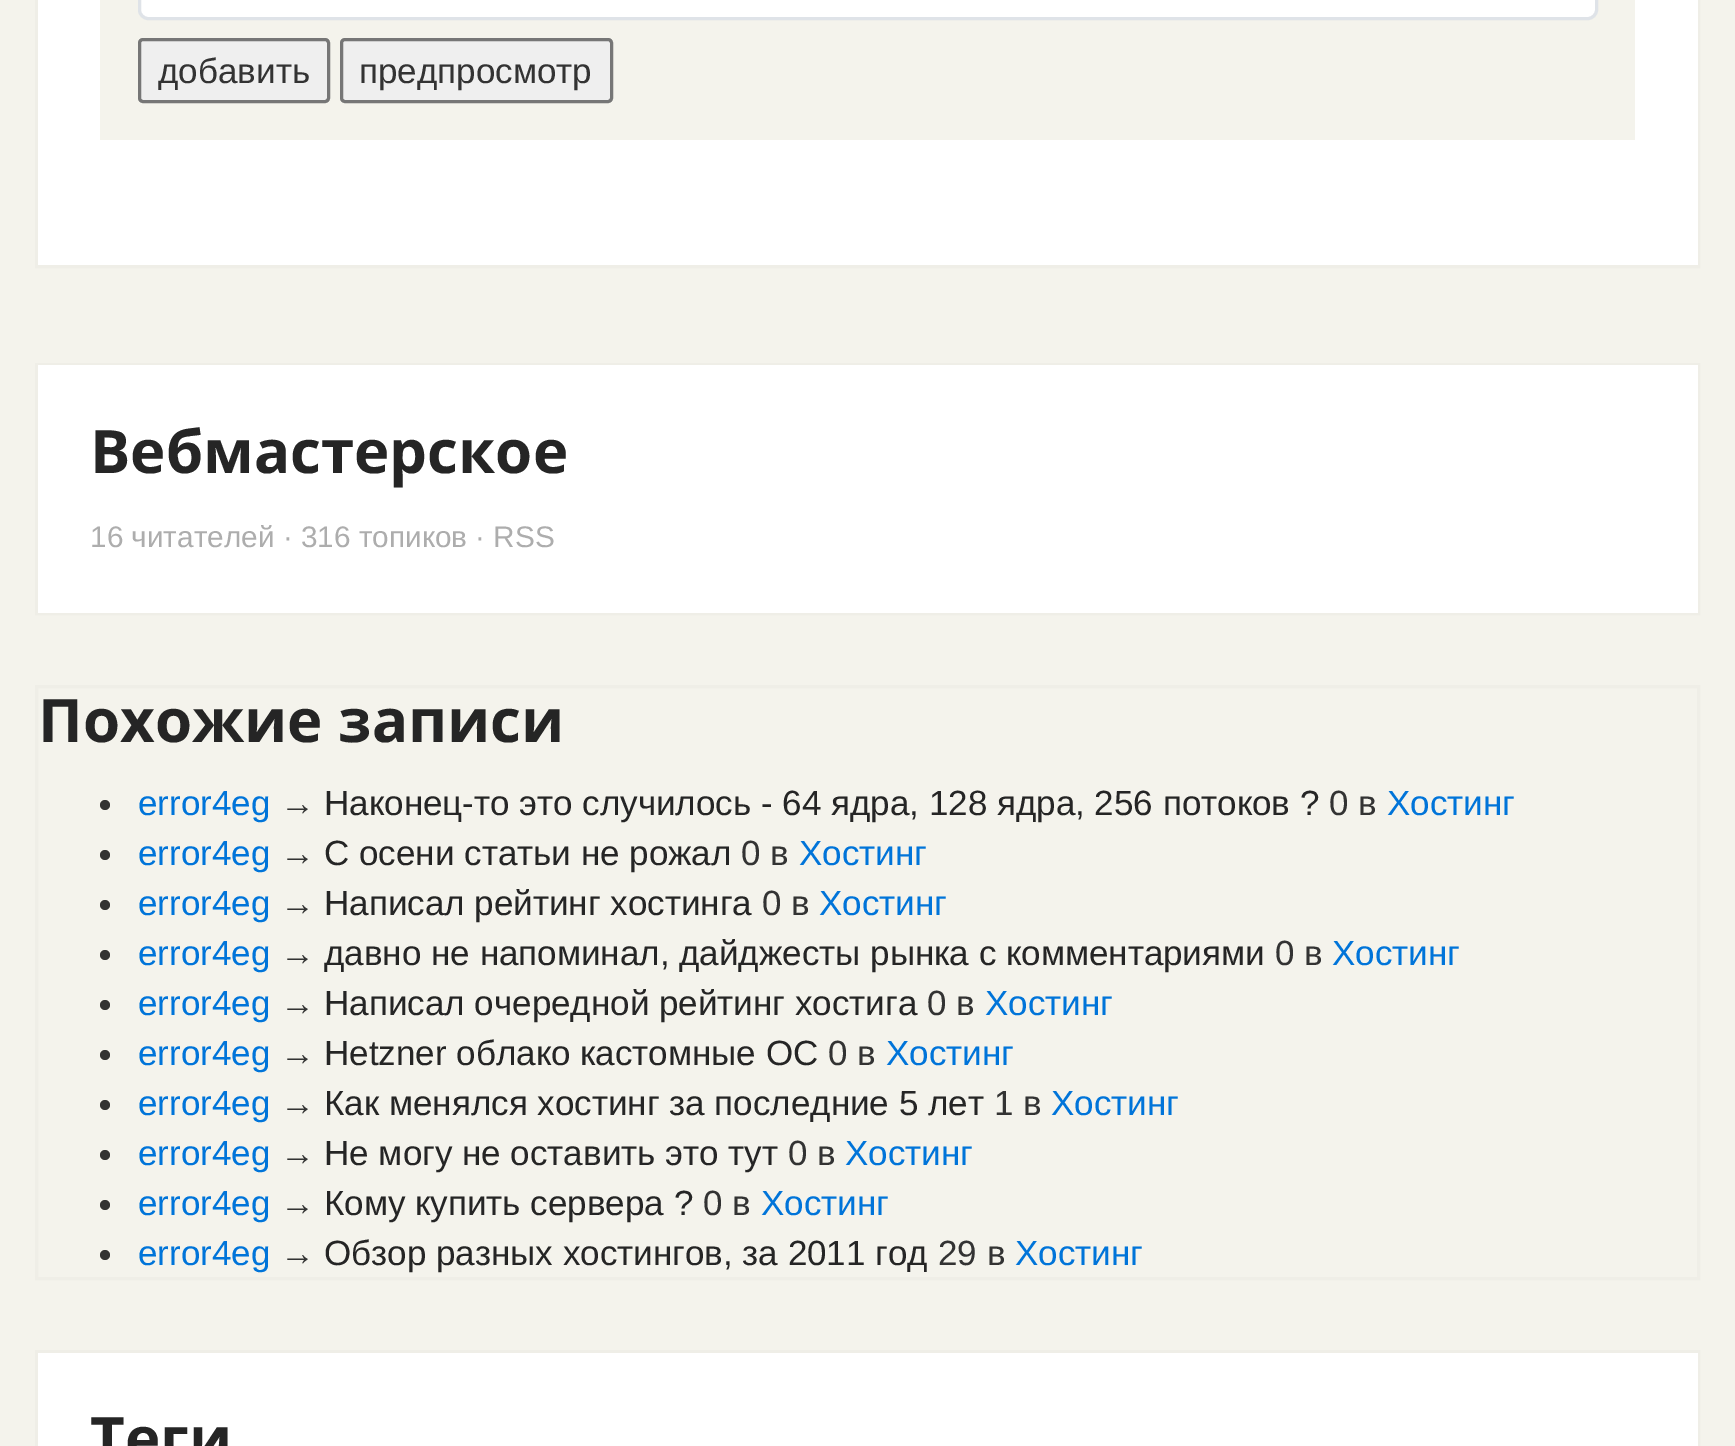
%!PS-Adobe-3.0
%%BoundingBox: 0 0 1735 1446
%%LanguageLevel: 3
%%Pages: 1
%%EndComments
%%BeginProlog
/setink { dup -16 bitshift 255 div exch dup -8 bitshift 255 and 255 div exch 255 and 255 div setrgbcolor } def
/usefont { [ exch dup neg 0 0 3 -1 roll 0 0 ] selectfont } def
/disc { newpath 0 360 arc closepath } def
/rrect { 5 dict begin { /r /h /w /y /x } { exch def } forall
  x r add y moveto x w add y 2 copy h add r arct x w add y h add x 1 index r arct
  x y h add x y r arct x y 2 copy exch w add exch r arct closepath end } def
%%EndProlog
%%BeginSetup
<< /PageSize [1735 1446] >> setpagedevice
%%EndSetup
%%Page: 1 1
0 1446 translate 1 -1 scale
4 setmiterlimit
16#F4F3EC setink
0 0 1735 1446 rectfill
16#EFEEE7 setink
3 setlinewidth
36.5 -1.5 1662 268 rectstroke
16#FFFFFF setink
38 0 1660 265 rectfill
16#F4F3EC setink
100 0 1535 140 rectfill
16#FFFFFF setink
139.5 -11.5 moveto 1596.5 -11.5 lineto 1596.5 10 lineto 1596.5 14.5 1592.5 18.5 1588 18.5 curveto 148 18.5 lineto 143.5 18.5 139.5 14.5 139.5 10 curveto closepath gsave fill grestore
16#DFE3E8 setink
stroke
16#EFEFEF setink
139.5 39.5 189 62 3.5 rrect gsave fill grestore
16#767676 setink
stroke
/LiberationSans-Regular 35 usefont
16#333333 setink
158 83 moveto (добавить) show
16#EFEFEF setink
341.5 39.5 270 62 3.5 rrect gsave fill grestore
16#767676 setink
stroke
16#333333 setink
359 83 moveto (предпросмотр) show
16#EFEEE7 setink
36.5 364.5 1662 249 rectstroke
16#FFFFFF setink
38 365 1660 248 rectfill
/OpenSans-Bold 60 usefont
16#252525 setink
90 473 moveto (Вебмастерское) show
/LiberationSans-Regular 29.75 usefont
16#ADADAD setink
90 547 moveto (16 читателей · 316 топиков · RSS) show
16#EFEEE7 setink
36.5 686.5 1662 592 rectstroke
/OpenSans-Bold 60 usefont
16#252525 setink
38 742 moveto (Похожие записи) show
16#333333 setink
105 805 5 disc fill
/LiberationSans-Regular 35 usefont
16#0074D9 setink
138 815 moveto (error4eg) show
16#333333 setink
280 815 moveto (→) show
16#252525 setink
324 815 moveto (Наконец-то это случилось - 64 ядра, 128 ядра, 256 потоков ?) show
16#333333 setink
1329 815 moveto (0 в) show
16#0074D9 setink
1387 815 moveto (Хостинг) show
16#333333 setink
105 855 5 disc fill
16#0074D9 setink
138 865 moveto (error4eg) show
16#333333 setink
280 865 moveto (→) show
16#252525 setink
324 865 moveto (С осени статьи не рожал) show
16#333333 setink
741 865 moveto (0 в) show
16#0074D9 setink
799 865 moveto (Хостинг) show
16#333333 setink
105 905 5 disc fill
16#0074D9 setink
138 915 moveto (error4eg) show
16#333333 setink
280 915 moveto (→) show
16#252525 setink
324 915 moveto (Написал рейтинг хостинга) show
16#333333 setink
762 915 moveto (0 в) show
16#0074D9 setink
819 915 moveto (Хостинг) show
16#333333 setink
105 955 5 disc fill
16#0074D9 setink
138 965 moveto (error4eg) show
16#333333 setink
280 965 moveto (→) show
16#252525 setink
324 965 moveto (давно не напоминал, дайджесты рынка с комментариями) show
16#333333 setink
1275 965 moveto (0 в) show
16#0074D9 setink
1332 965 moveto (Хостинг) show
16#333333 setink
105 1005 5 disc fill
16#0074D9 setink
138 1015 moveto (error4eg) show
16#333333 setink
280 1015 moveto (→) show
16#252525 setink
324 1015 moveto (Написал очередной рейтинг хостига) show
16#333333 setink
927 1015 moveto (0 в) show
16#0074D9 setink
985 1015 moveto (Хостинг) show
16#333333 setink
105 1055 5 disc fill
16#0074D9 setink
138 1065 moveto (error4eg) show
16#333333 setink
280 1065 moveto (→) show
16#252525 setink
324 1065 moveto (Hetzner облако кастомные ОС) show
16#333333 setink
828 1065 moveto (0 в) show
16#0074D9 setink
886 1065 moveto (Хостинг) show
16#333333 setink
105 1105 5 disc fill
16#0074D9 setink
138 1115 moveto (error4eg) show
16#333333 setink
280 1115 moveto (→) show
16#252525 setink
324 1115 moveto (Как менялся хостинг за последние 5 лет) show
16#333333 setink
994 1115 moveto (1 в) show
16#0074D9 setink
1051 1115 moveto (Хостинг) show
16#333333 setink
105 1155 5 disc fill
16#0074D9 setink
138 1165 moveto (error4eg) show
16#333333 setink
280 1165 moveto (→) show
16#252525 setink
324 1165 moveto (Не могу не оставить это тут) show
16#333333 setink
788 1165 moveto (0 в) show
16#0074D9 setink
845 1165 moveto (Хостинг) show
16#333333 setink
105 1205 5 disc fill
16#0074D9 setink
138 1215 moveto (error4eg) show
16#333333 setink
280 1215 moveto (→) show
16#252525 setink
324 1215 moveto (Кому купить сервера ?) show
16#333333 setink
703 1215 moveto (0 в) show
16#0074D9 setink
761 1215 moveto (Хостинг) show
16#333333 setink
105 1255 5 disc fill
16#0074D9 setink
138 1265 moveto (error4eg) show
16#333333 setink
280 1265 moveto (→) show
16#252525 setink
324 1265 moveto (Обзор разных хостингов, за 2011 год) show
16#333333 setink
938 1265 moveto (29 в) show
16#0074D9 setink
1015 1265 moveto (Хостинг) show
16#EFEEE7 setink
36.5 1351.5 1662 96 rectstroke
16#FFFFFF setink
38 1353 1660 93 rectfill
/OpenSans-Bold 60 usefont
16#252525 setink
90 1460 moveto (Теги) show
showpage
%%EOF
